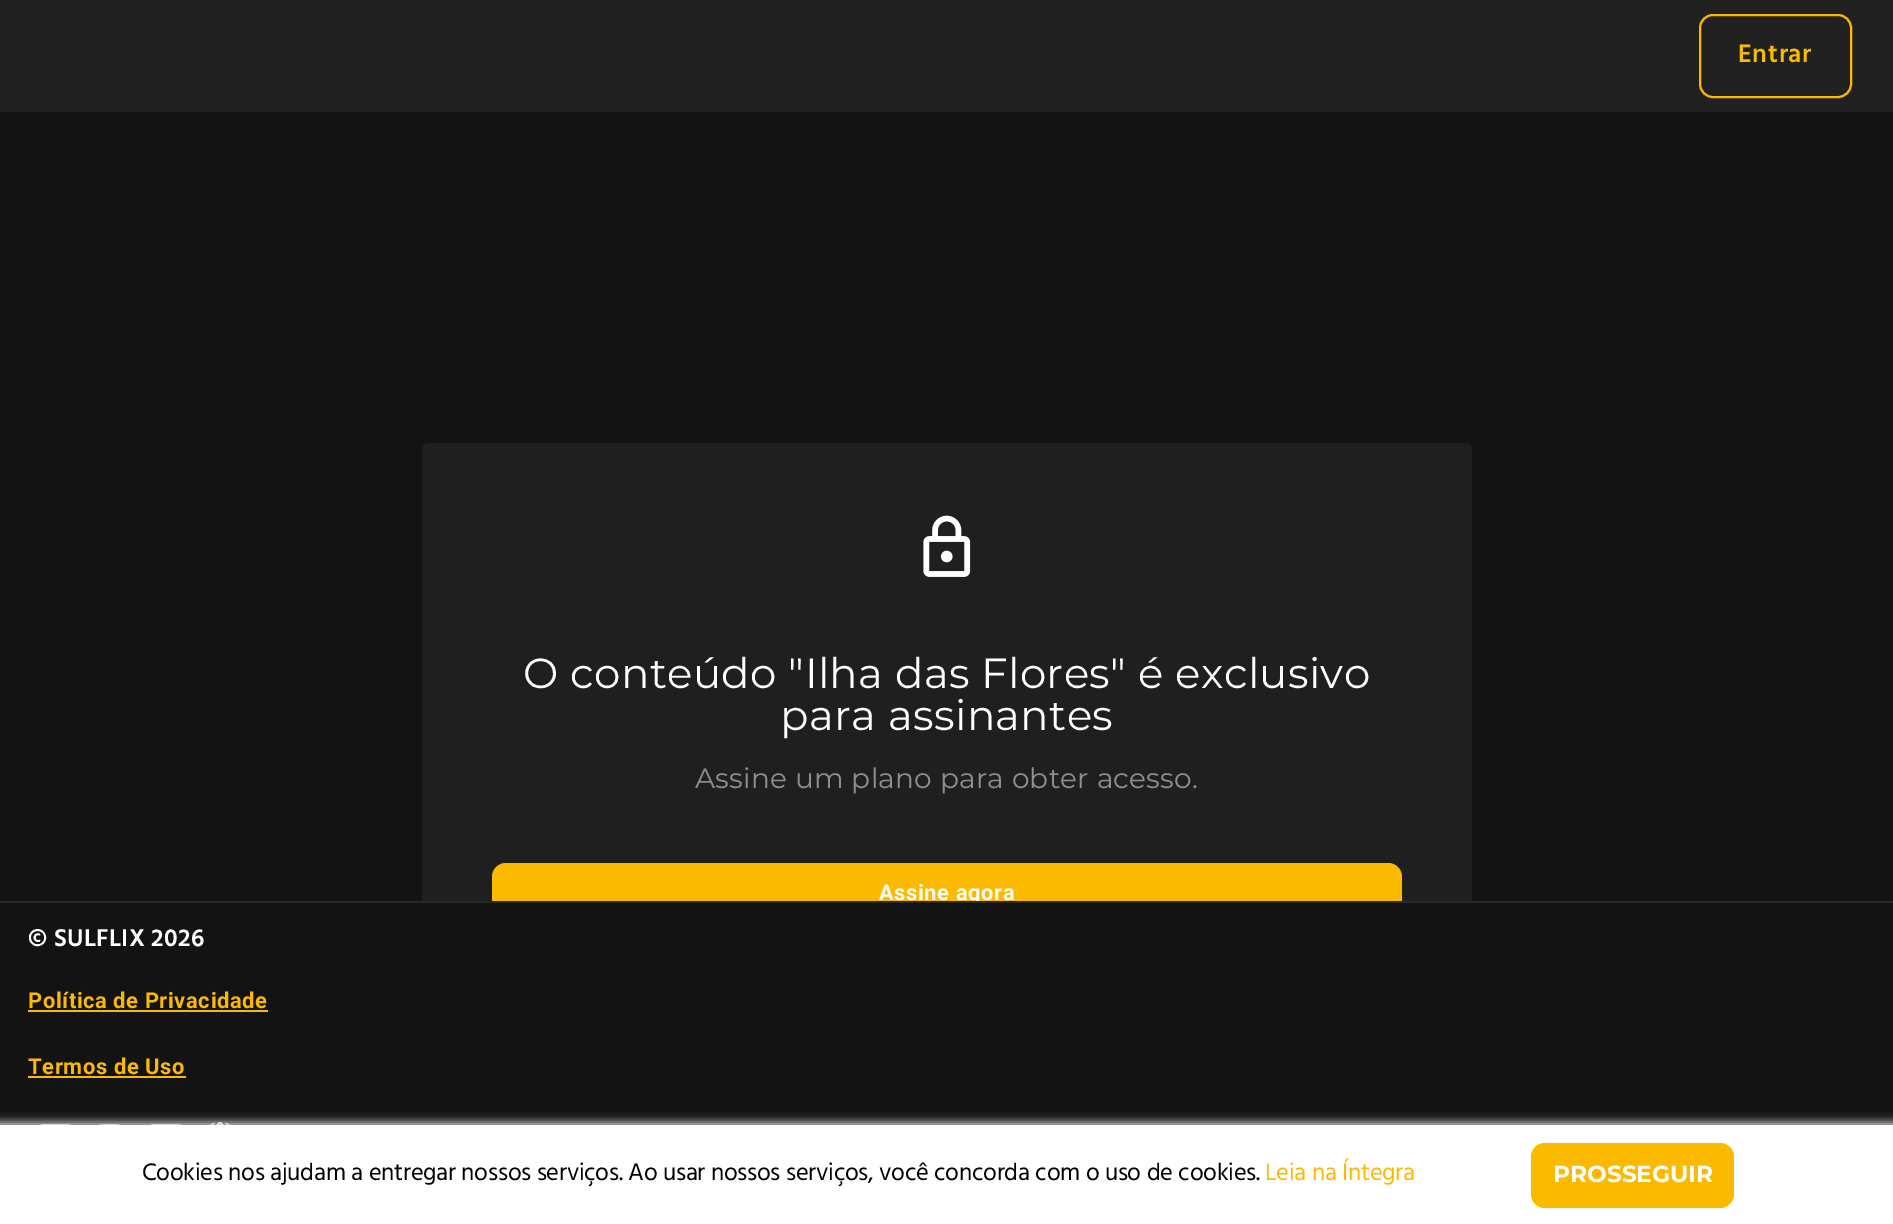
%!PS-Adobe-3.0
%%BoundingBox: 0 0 1893 1224
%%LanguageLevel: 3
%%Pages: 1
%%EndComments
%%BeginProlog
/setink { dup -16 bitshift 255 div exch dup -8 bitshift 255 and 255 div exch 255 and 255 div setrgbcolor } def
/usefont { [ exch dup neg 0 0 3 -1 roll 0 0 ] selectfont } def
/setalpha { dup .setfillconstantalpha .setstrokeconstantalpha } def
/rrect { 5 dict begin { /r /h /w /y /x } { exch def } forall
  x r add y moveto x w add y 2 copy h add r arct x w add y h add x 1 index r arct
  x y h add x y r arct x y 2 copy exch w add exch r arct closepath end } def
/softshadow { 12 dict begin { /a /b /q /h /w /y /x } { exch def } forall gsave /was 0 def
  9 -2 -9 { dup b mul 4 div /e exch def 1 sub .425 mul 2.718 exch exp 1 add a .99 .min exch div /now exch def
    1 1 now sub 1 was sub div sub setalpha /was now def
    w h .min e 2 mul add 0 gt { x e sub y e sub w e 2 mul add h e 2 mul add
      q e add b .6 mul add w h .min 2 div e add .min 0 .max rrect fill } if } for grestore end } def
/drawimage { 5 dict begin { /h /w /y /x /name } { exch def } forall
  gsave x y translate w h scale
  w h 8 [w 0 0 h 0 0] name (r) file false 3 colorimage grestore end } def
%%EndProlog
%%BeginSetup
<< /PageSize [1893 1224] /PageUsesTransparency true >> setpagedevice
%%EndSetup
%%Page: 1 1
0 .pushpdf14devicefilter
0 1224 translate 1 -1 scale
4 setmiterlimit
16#131313 setink
0 0 1893 1224 rectfill
16#212121 setink
0 0 1893 112 rectfill
16#FBBA00 setink
2 setlinewidth
1700 15 151 82 13 rrect stroke
/Hind-SemiBold 26 usefont
1738 62 moveto 0.75 0 (Entrar) ashow
16#1F1F1F setink
422 443 1050 549 7 rrect fill
(img1.raw) 923 515 48 62 drawimage
/Montserrat-Regular 42 usefont
16#FFFFFF setink
523 688 moveto 0.4 0 (O conteúdo "Ilha das Flores" é exclusivo) ashow
780 730 moveto 0.4 0 (para assinantes) ashow
/Montserrat-Regular 28 usefont
16#8F8F8F setink
695 788 moveto 0.25 0 (Assine um plano para obter acesso.) ashow
16#FBBA00 setink
492 863 910 59 14 rrect fill
/Roboto-Bold 21.9 usefont
16#FFFFFF setink
879 900 moveto 0.6 0 (Assine agora) ashow
16#131313 setink
422 903 1050 89 rectfill
16#292929 setink
0 901 1893 2 rectfill
/Hind-SemiBold 25 usefont
16#FFFFFF setink
28 946 moveto 0.25 0 (© SULFLIX 2026) ashow
/Roboto-Bold 21.9 usefont
16#FBBA00 setink
28 1008 moveto 0.6 0 (Política de Privacidade) ashow
28 1010 240 2 rectfill
28 1074 moveto 0.6 0 (Termos de Uso) ashow
28 1076 158 2 rectfill
(img2.raw) 40 1124 31 1 drawimage
(img3.raw) 99 1124 22 1 drawimage
(img4.raw) 150 1124 31 1 drawimage
(img5.raw) 209 1122 22 3 drawimage
16#CCCCCC setink
-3 1122 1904 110 0 4.5 1 softshadow
16#FFFFFF setink
0 1125 1893 99 rectfill
/Hind-Regular 24.5 usefont
16#000000 setink
142 1180 moveto -0.28 0 (Cookies nos ajudam a entregar nossos serviços. Ao usar nossos serviços, você concorda com o uso de cookies.) ashow
16#FBBA00 setink
1265 1180 moveto -0.28 0 (Leia na Íntegra) ashow
1531 1143 203 65 14 rrect fill
/Montserrat-Bold 23.25 usefont
16#FFFFFF setink
1553 1182 moveto (PROSSEGUIR) show
.poppdf14devicefilter showpage
%%EOF
